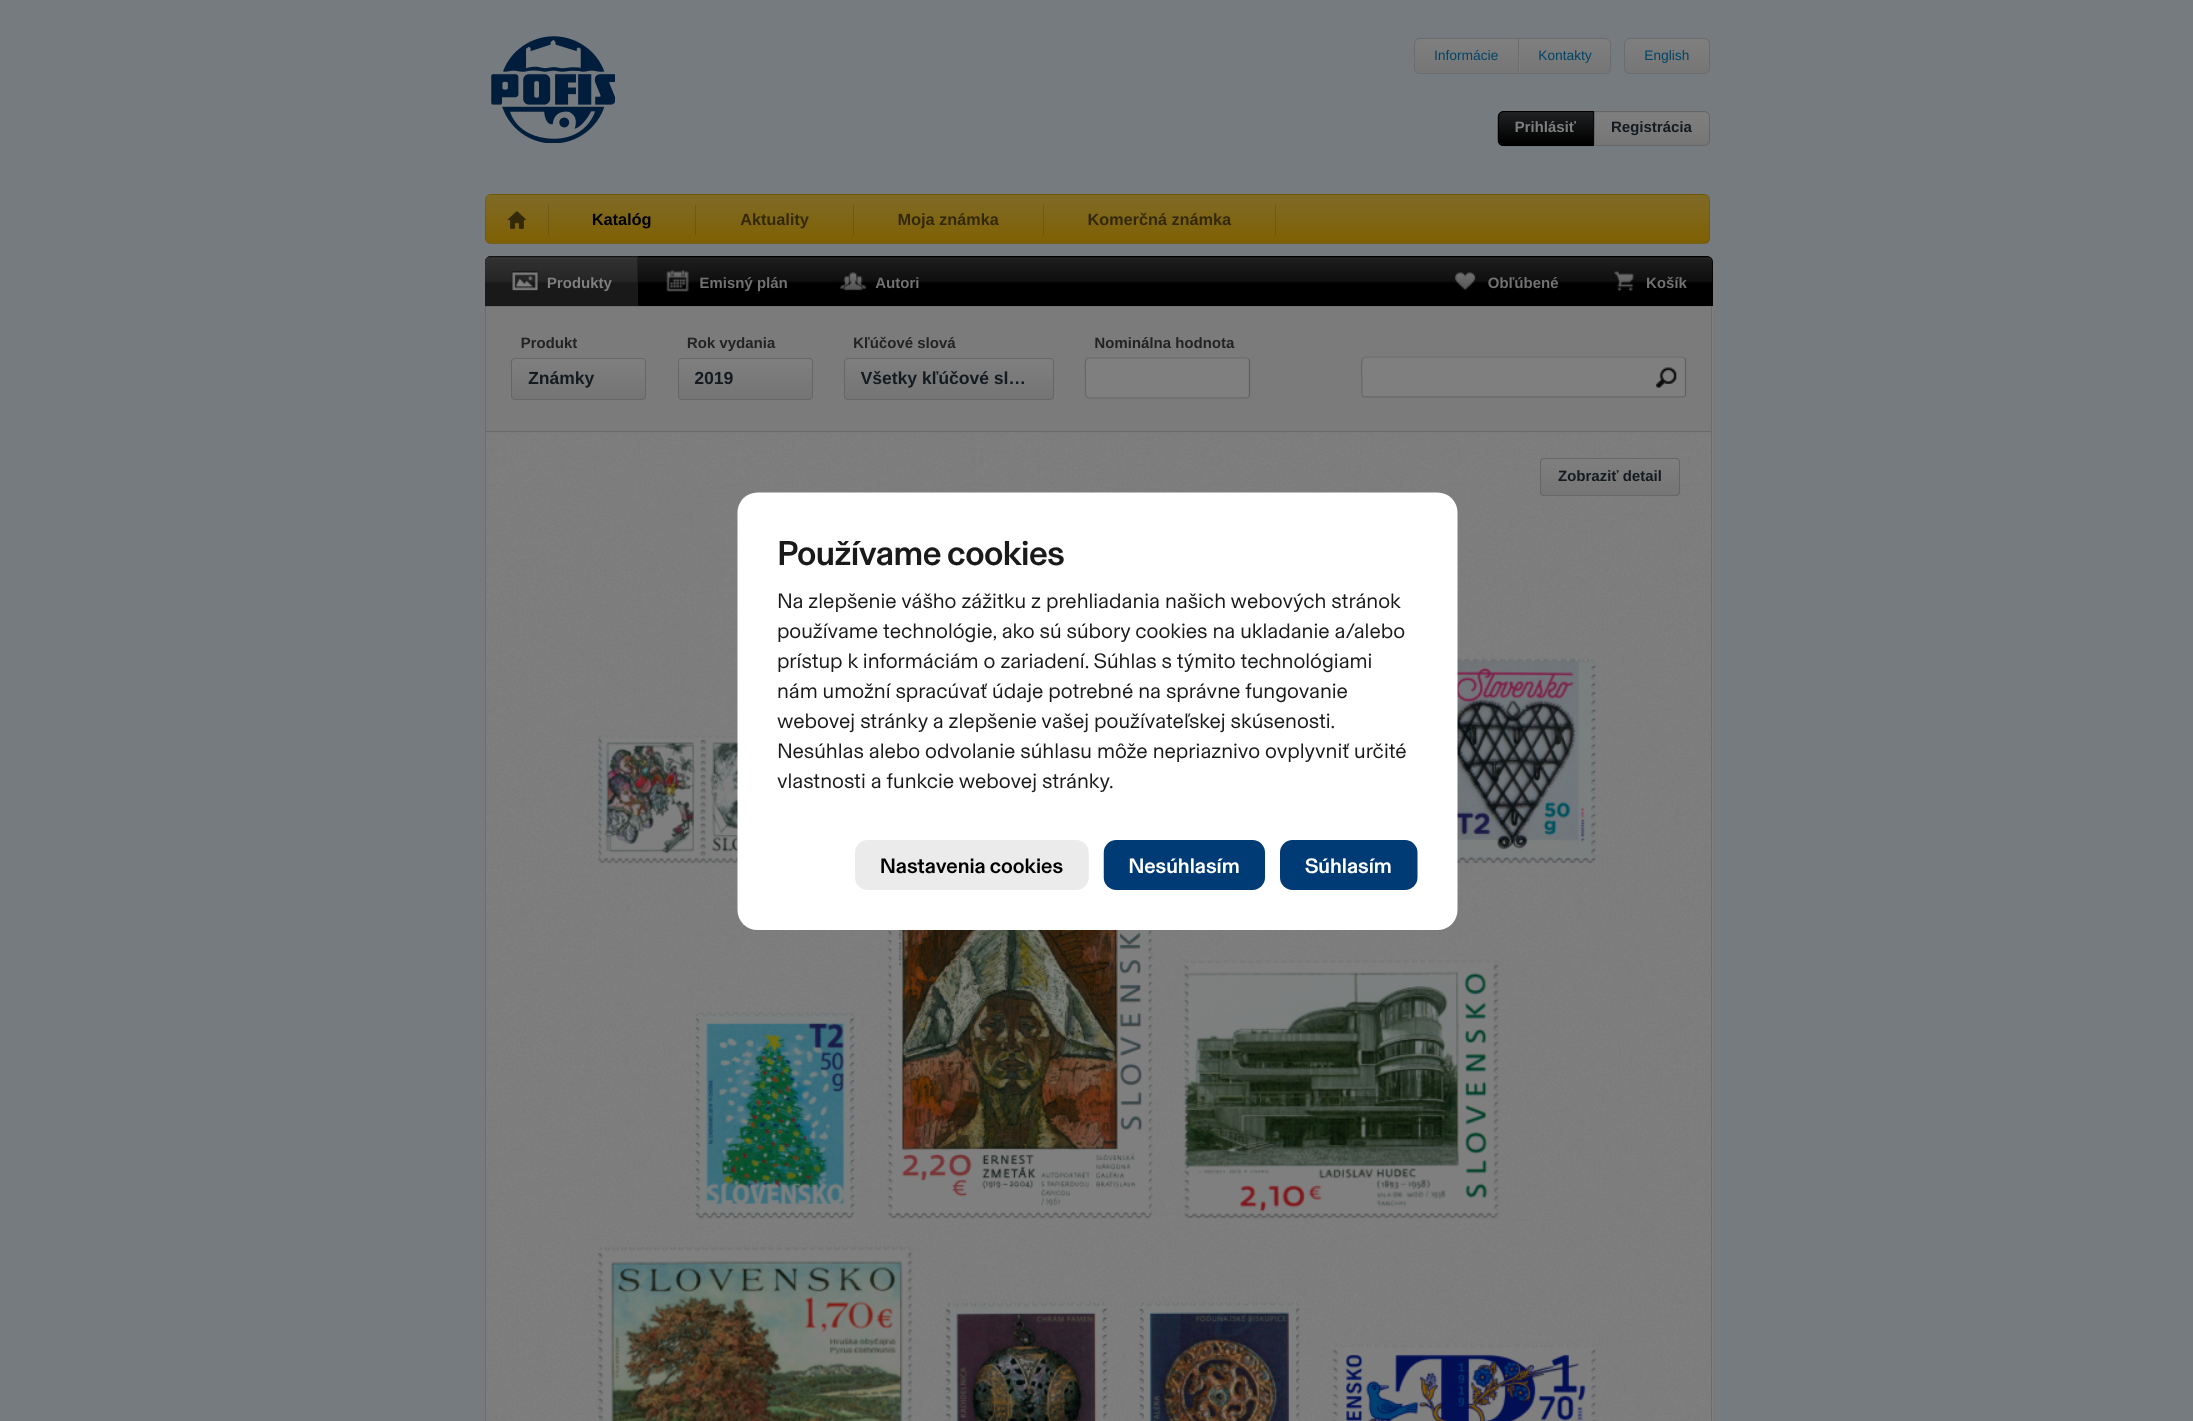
%!PS-Adobe-3.0
%%BoundingBox: 0 0 2193 1421
%%LanguageLevel: 3
%%Pages: 1
%%EndComments
%%BeginProlog
/setink { dup -16 bitshift 255 div exch dup -8 bitshift 255 and 255 div exch 255 and 255 div setrgbcolor } def
/usefont { [ exch dup neg 0 0 3 -1 roll 0 0 ] selectfont } def
/setalpha { dup .setfillconstantalpha .setstrokeconstantalpha } def
/rrect { 5 dict begin { /r /h /w /y /x } { exch def } forall
  x r add y moveto x w add y 2 copy h add r arct x w add y h add x 1 index r arct
  x y h add x y r arct x y 2 copy exch w add exch r arct closepath end } def
/drawimage { 5 dict begin { /h /w /y /x /name } { exch def } forall
  gsave x y translate w h scale
  w h 8 [w 0 0 h 0 0] name (r) file false 3 colorimage grestore end } def
%%EndProlog
%%BeginSetup
<< /PageSize [2193 1421] /PageUsesTransparency true >> setpagedevice
%%EndSetup
%%Page: 1 1
0 .pushpdf14devicefilter
0 1421 translate 1 -1 scale
4 setmiterlimit
16#EBF6FF setink
0 0 2193 1421 rectfill
(img2.raw) 491 36 124 107 drawimage
(img3.raw) 1414 37 197 36 drawimage
16#D6D8DA setink
1414.5 38.5 196 35 5.5 rrect stroke
1518 39 1 34 rectfill
/LiberationSans-Regular 13.75 usefont
16#0088CC setink
1434 60 moveto (Informácie) show
16#FEFFFE setink
1519 39 1 34 rectfill
16#0088CC setink
1538 60 moveto (Kontakty) show
(img4.raw) 1624 37 86 36 drawimage
16#D6D8DA setink
1624.5 38.5 85 35 5.5 rrect stroke
16#0088CC setink
1644 60 moveto (English) show
(img5.raw) 1497 111 97 36 drawimage
16#000000 setink
1504 111.5 moveto 1593.5 111.5 lineto 1593.5 145.5 lineto 1504 145.5 lineto 1501 145.5 1498.5 143 1498.5 140 curveto 1498.5 117 lineto 1498.5 114 1501 111.5 1504 111.5 curveto closepath stroke
/LiberationSans-Bold 15 usefont
16#FFFFFF setink
1515 132 moveto (Prihlásiť) show
(img6.raw) 1593 112 117 34 drawimage
16#CCCCCC setink
1594.5 111.5 moveto 1704 111.5 lineto 1707 111.5 1709.5 114 1709.5 117 curveto 1709.5 140 lineto 1709.5 143 1707 145.5 1704 145.5 curveto 1594.5 145.5 lineto closepath stroke
16#293640 setink
1611 132 moveto (Registrácia) show
gsave
485 194 1225 50 6 rrect clip newpath
gsave 485 194 moveto 1710 194 lineto 1710 195 lineto 485 195 lineto closepath clip newpath
<< /ShadingType 2 /ColorSpace /DeviceRGB /Coords [1098 147 1098 195] /Extend [true true] /Function << /FunctionType 2 /Domain [0 1] /C0 [1 0.835 0.31] /C1 [1 0.757 0.027] /N 1 >> >> shfill grestore
gsave 485 195 moveto 1710 195 lineto 1710 243 lineto 485 243 lineto closepath clip newpath
<< /ShadingType 2 /ColorSpace /DeviceRGB /Coords [1098 195 1098 243] /Extend [true true] /Function << /FunctionType 2 /Domain [0 1] /C0 [1 0.835 0.31] /C1 [1 0.757 0.027] /N 1 >> >> shfill grestore
grestore
gsave 1275 205 moveto 1276 205 lineto 1276 235 lineto 1275 235 lineto closepath clip newpath
<< /ShadingType 2 /ColorSpace /DeviceRGB /Coords [1098 195 1098 243] /Extend [true true] /Function << /FunctionType 2 /Domain [0 1] /C0 [0.871 0.725 0.271] /C1 [0.871 0.659 0.024] /N 1 >> >> shfill grestore
gsave 1043 205 moveto 1044 205 lineto 1044 235 lineto 1043 235 lineto closepath clip newpath
<< /ShadingType 2 /ColorSpace /DeviceRGB /Coords [1098 195 1098 243] /Extend [true true] /Function << /FunctionType 2 /Domain [0 1] /C0 [0.871 0.725 0.271] /C1 [0.871 0.659 0.024] /N 1 >> >> shfill grestore
gsave 853 205 moveto 854 205 lineto 854 235 lineto 853 235 lineto closepath clip newpath
<< /ShadingType 2 /ColorSpace /DeviceRGB /Coords [1098 195 1098 243] /Extend [true true] /Function << /FunctionType 2 /Domain [0 1] /C0 [0.871 0.725 0.271] /C1 [0.871 0.659 0.024] /N 1 >> >> shfill grestore
gsave 695 205 moveto 696 205 lineto 696 235 lineto 695 235 lineto closepath clip newpath
<< /ShadingType 2 /ColorSpace /DeviceRGB /Coords [1098 195 1098 243] /Extend [true true] /Function << /FunctionType 2 /Domain [0 1] /C0 [0.871 0.725 0.271] /C1 [0.871 0.659 0.024] /N 1 >> >> shfill grestore
gsave 548 205 moveto 549 205 lineto 549 235 lineto 548 235 lineto closepath clip newpath
<< /ShadingType 2 /ColorSpace /DeviceRGB /Coords [1098 195 1098 243] /Extend [true true] /Function << /FunctionType 2 /Domain [0 1] /C0 [0.871 0.725 0.271] /C1 [0.871 0.659 0.024] /N 1 >> >> shfill grestore
gsave
485 194 1225 50 6 rrect clip newpath
gsave 485 243 moveto 1710 243 lineto 1710 244 lineto 485 244 lineto closepath clip newpath
<< /ShadingType 2 /ColorSpace /DeviceRGB /Coords [1098 242 1098 290] /Extend [true true] /Function << /FunctionType 2 /Domain [0 1] /C0 [1 0.835 0.31] /C1 [1 0.757 0.027] /N 1 >> >> shfill grestore
grestore
0.1 setalpha
16#000000 setink
485.5 194.5 1224 49 5.5 rrect stroke
1 setalpha
(img7.raw) 507 211 20 18 drawimage
/LiberationSans-Bold 16.25 usefont
592 225 moveto (Katalóg) show
16#665110 setink
[
    [(Aktuality) 740 225]
    [(Moja známka) 898 225]
    [(Komerčná známka) 1088 225]
] { aload pop moveto show } forall
16#000000 setink
491 256 moveto 1707 256 lineto 1710.5 256 1713 258.5 1713 262 curveto 1713 306 lineto 485 306 lineto 485 262 lineto 485 258.5 487.5 256 491 256 curveto closepath fill
16#FFFFFF setink
1712 306 1 1115 rectfill
(img15.raw) 486 433 1225 988 drawimage
16#D6D8DA setink
485 306 moveto 1712 306 lineto 1712 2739 lineto 1712 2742 1710 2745 1706 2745 curveto 491 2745 lineto 488 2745 485 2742 485 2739 curveto closepath 486 306 moveto 1711 306 lineto 1711 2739 lineto 1711 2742 1709 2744 1706 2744 curveto 491 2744 lineto 488 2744 486 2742 486 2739 curveto closepath eofill
16#F7F7F7 setink
486 306 1225 127 rectfill
(img8.raw) 485 256 1228 51 drawimage
16#333333 setink
491 256 moveto 638 256 lineto 638 306 lineto 485 306 lineto 485 262 lineto 485 258.5 487.5 256 491 256 curveto closepath fill
(img9.raw) 485 256 153 51 drawimage
(img10.raw) 511 271 28 20 drawimage
/LiberationSans-Bold 15 usefont
16#FFFFFF setink
547 288 moveto (Produkty) show
(img11.raw) 666 269 23 23 drawimage
16#E4E4E4 setink
699 288 moveto (Emisný plán) show
(img12.raw) 839 272 28 19 drawimage
875 288 moveto (Autori) show
(img13.raw) 1454 272 22 19 drawimage
1488 288 moveto (Obľúbené) show
(img14.raw) 1613 271 21 21 drawimage
1646 288 moveto (Košík) show
16#D5D5D5 setink
486 431 1225 1 rectfill
16#464646 setink
521 348 moveto (Produkt) show
(img16.raw) 511 359 135 40 drawimage
16#CCCCCC setink
511.5 358.5 134 41 3.5 rrect stroke
/LiberationSans-Bold 17.5 usefont
16#293640 setink
528 384 moveto (Známky) show
/LiberationSans-Bold 15 usefont
16#464646 setink
687 348 moveto (Rok vydania) show
(img17.raw) 678 359 134 40 drawimage
16#CCCCCC setink
678.5 358.5 134 41 3.5 rrect stroke
/LiberationSans-Bold 17.5 usefont
16#293640 setink
694 384 moveto (2019) show
/LiberationSans-Bold 15 usefont
16#464646 setink
853 348 moveto (Kľúčové slová) show
(img18.raw) 844 359 210 40 drawimage
16#CCCCCC setink
844.5 358.5 209 41 3.5 rrect stroke
/LiberationSans-Bold 17.5 usefont
16#293640 setink
861 384 moveto (Všetky kľúčové sl…) show
/LiberationSans-Bold 15 usefont
16#464646 setink
1094 348 moveto (Nominálna hodnota) show
16#FFFFFF setink
1085 358 165 41 4 rrect fill
16#D9D9D9 setink
1.2 setlinewidth
1086.5 359 moveto 1088.5 358 lineto 1220 358 lineto 1246 358 lineto 1248.5 359 lineto stroke
16#BEBEBE setink
1248.5 359 moveto 1249 359.5 1249.5 360.5 1249.5 361 curveto 1249.5 395 lineto 1249.5 396 1249 396.5 1248.5 397 curveto stroke
16#CCCCCC setink
1248.5 397 moveto 1247 398 lineto 1089 398 lineto 1084.5 398 1085.5 391.5 1085.5 389.5 curveto 1085.5 372.5 lineto 1085.5 370 1084.5 361.5 1086.5 359 curveto stroke
16#FFFFFF setink
1361 356 325 42 4 rrect fill
(img19.raw) 1656 367 21 21 drawimage
16#D9D9D9 setink
1363 358 moveto 1365 357 lineto 1682.5 357 lineto 1684.5 358 lineto stroke
16#BEBEBE setink
1684.5 358 moveto 1685.5 358.5 1685.5 359 1685.5 360 curveto 1685.5 394 lineto 1685.5 394.5 1685.5 395.5 1684.5 396 curveto stroke
16#CCCCCC setink
1684.5 396 moveto 1683 397 lineto 1365 397 lineto 1360.5 397 1362 390.5 1362 388 curveto 1362 382.5 lineto 1362 378.5 1360.5 360 1363 358 curveto stroke
(img20.raw) 1540 459 140 37 drawimage
1 setlinewidth
1540.5 458.5 139 37 3.5 rrect stroke
16#293640 setink
1558 481 moveto (Zobraziť detail) show
(img21.raw) 598 735 140 129 drawimage
(img22.raw) 1457 658 139 206 drawimage
(img23.raw) 695 1012 160 207 drawimage
(img24.raw) 888 930 264 289 drawimage
(img25.raw) 1184 960 315 259 drawimage
(img26.raw) 598 1246 314 175 drawimage
(img27.raw) 945 1302 162 119 drawimage
(img28.raw) 1139 1302 161 119 drawimage
(img29.raw) 1333 1344 263 77 drawimage
(img1.raw) 0 0 2193 1421 drawimage
.poppdf14devicefilter showpage
%%EOF
